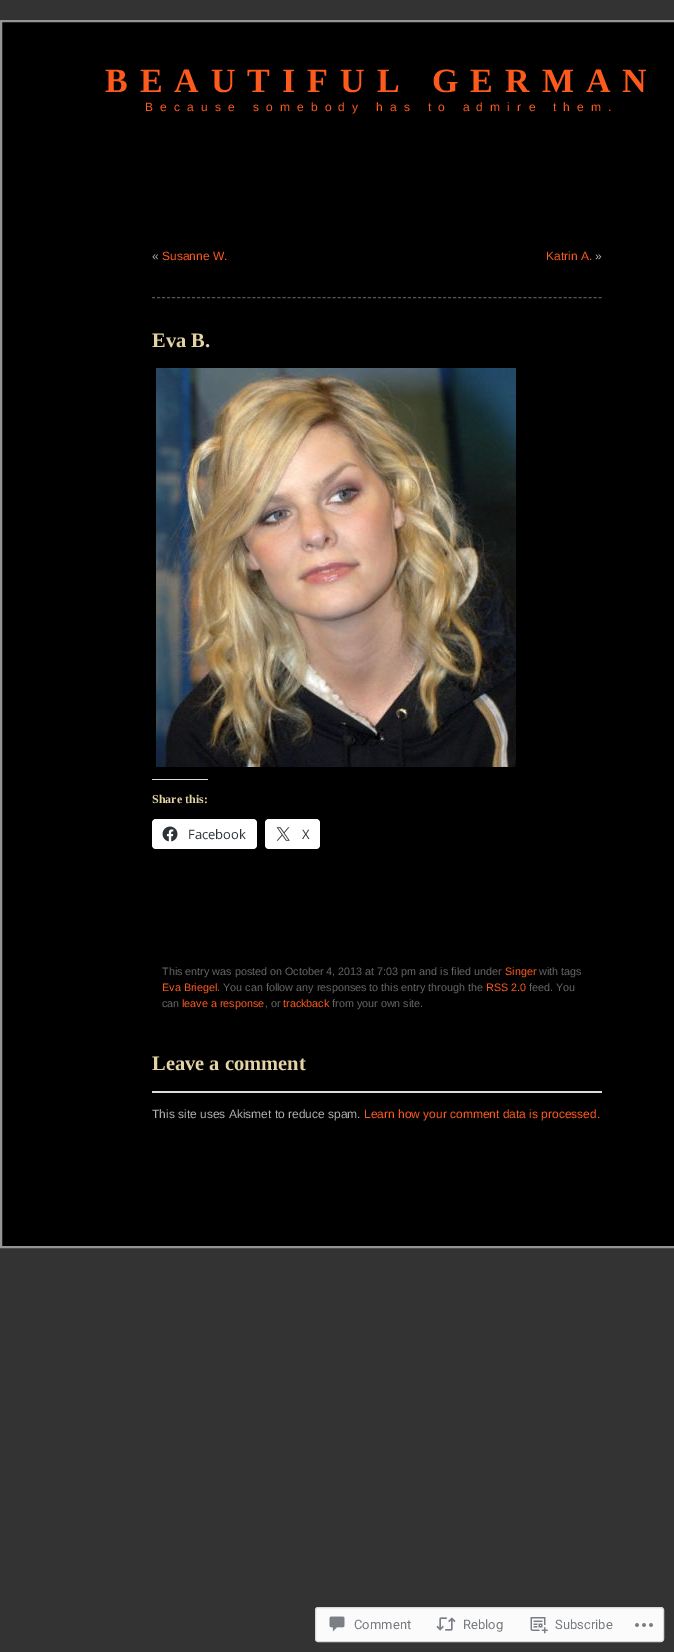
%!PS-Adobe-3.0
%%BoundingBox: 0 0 674 1652
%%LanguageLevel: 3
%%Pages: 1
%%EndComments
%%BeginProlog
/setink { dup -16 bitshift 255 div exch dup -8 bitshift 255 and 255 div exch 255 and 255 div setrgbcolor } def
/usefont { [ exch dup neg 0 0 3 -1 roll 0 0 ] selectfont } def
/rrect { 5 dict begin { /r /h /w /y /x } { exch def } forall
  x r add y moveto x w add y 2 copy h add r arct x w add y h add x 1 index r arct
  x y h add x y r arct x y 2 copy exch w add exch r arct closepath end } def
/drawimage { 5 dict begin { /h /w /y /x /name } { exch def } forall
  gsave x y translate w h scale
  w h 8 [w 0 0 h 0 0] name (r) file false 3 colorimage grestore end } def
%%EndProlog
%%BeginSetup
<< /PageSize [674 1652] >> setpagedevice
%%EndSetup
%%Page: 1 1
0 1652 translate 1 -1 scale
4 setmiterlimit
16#333333 setink
0 0 674 1652 rectfill
16#000000 setink
1 21 moveto 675 21 lineto 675 1247 lineto 1 1247 lineto closepath gsave fill grestore
16#959596 setink
2 setlinewidth
stroke
/LiberationSerif-Bold 34 usefont
16#FD5A1E setink
105 92 moveto 12 0 (BEAUTIFUL GERMAN) ashow
/LiberationSans-Regular 12 usefont
145 111 moveto 7.2 0 (Because somebody has to admire them.) ashow
16#B0B0B0 setink
152 260 moveto («) show
16#FD5A1E setink
162 260 moveto (Susanne W.) show
546 260 moveto (Katrin A.) show
16#B0B0B0 setink
595 260 moveto (») show
16#555555 setink
1 setlinewidth
[3 2.02] 0 setdash
152 297.5 moveto 602 297.5 lineto stroke
/LiberationSerif-Bold 20.5 usefont
16#E4D3A6 setink
152 347 moveto (Eva B.) show
(img1.raw) 156 368 360 399 drawimage
16#DCDCDE setink
152 779 56 1 rectfill
/LiberationSerif-Bold 12 usefont
16#E4D3A6 setink
152 803 moveto (Share this:) show
16#FFFFFF setink
152 819 105 30 4 rrect fill
(img2.raw) 162 826 16 16 drawimage
/OpenSans-Regular 13 usefont
16#2C3338 setink
188 839 moveto (Facebook) show
16#FFFFFF setink
265 819 55 30 4 rrect fill
(img3.raw) 276 827 14 14 drawimage
16#2C3338 setink
302 839 moveto (X) show
/LiberationSans-Regular 10.8 usefont
16#666666 setink
162 975 moveto (This entry was posted on October 4, 2013 at 7:03 pm and is filed under) show
16#FD5A1E setink
505 975 moveto (Singer) show
16#666666 setink
539 975 moveto (with tags) show
16#FD5A1E setink
162 991 moveto (Eva Briegel) show
16#666666 setink
217 991 moveto (. You can follow any responses to this entry through the) show
16#FD5A1E setink
486 991 moveto (RSS 2.0) show
16#666666 setink
529 991 moveto (feed. You) show
162 1007 moveto (can) show
16#FD5A1E setink
182 1007 moveto (leave a response) show
16#666666 setink
265 1007 moveto (, or) show
16#FD5A1E setink
283 1007 moveto (trackback) show
16#666666 setink
332 1007 moveto (from your own site.) show
/LiberationSerif-Bold 20.5 usefont
16#E4D3A6 setink
152 1070 moveto (Leave a comment) show
16#DCDCDE setink
152 1091 450 2 rectfill
/LiberationSans-Regular 12 usefont
16#B0B0B0 setink
152 1118 moveto (This site uses Akismet to reduce spam.) show
16#FD5A1E setink
364 1118 moveto (Learn how your comment data is processed.) show
16#FBFBFB setink
315.5 1607.5 348 34 2.5 rrect gsave fill grestore
16#D9D9DB setink
[] 0 setdash
stroke
(img4.raw) 329 1616 16 16 drawimage
/Roboto-Regular 13 usefont
16#777B80 setink
354 1629 moveto (Comment) show
(img5.raw) 436 1617 20 14 drawimage
463 1629 moveto (Reblog) show
(img6.raw) 530 1617 18 17 drawimage
555 1629 moveto (Subscribe) show
(img7.raw) 635 1623 18 4 drawimage
showpage
%%EOF
